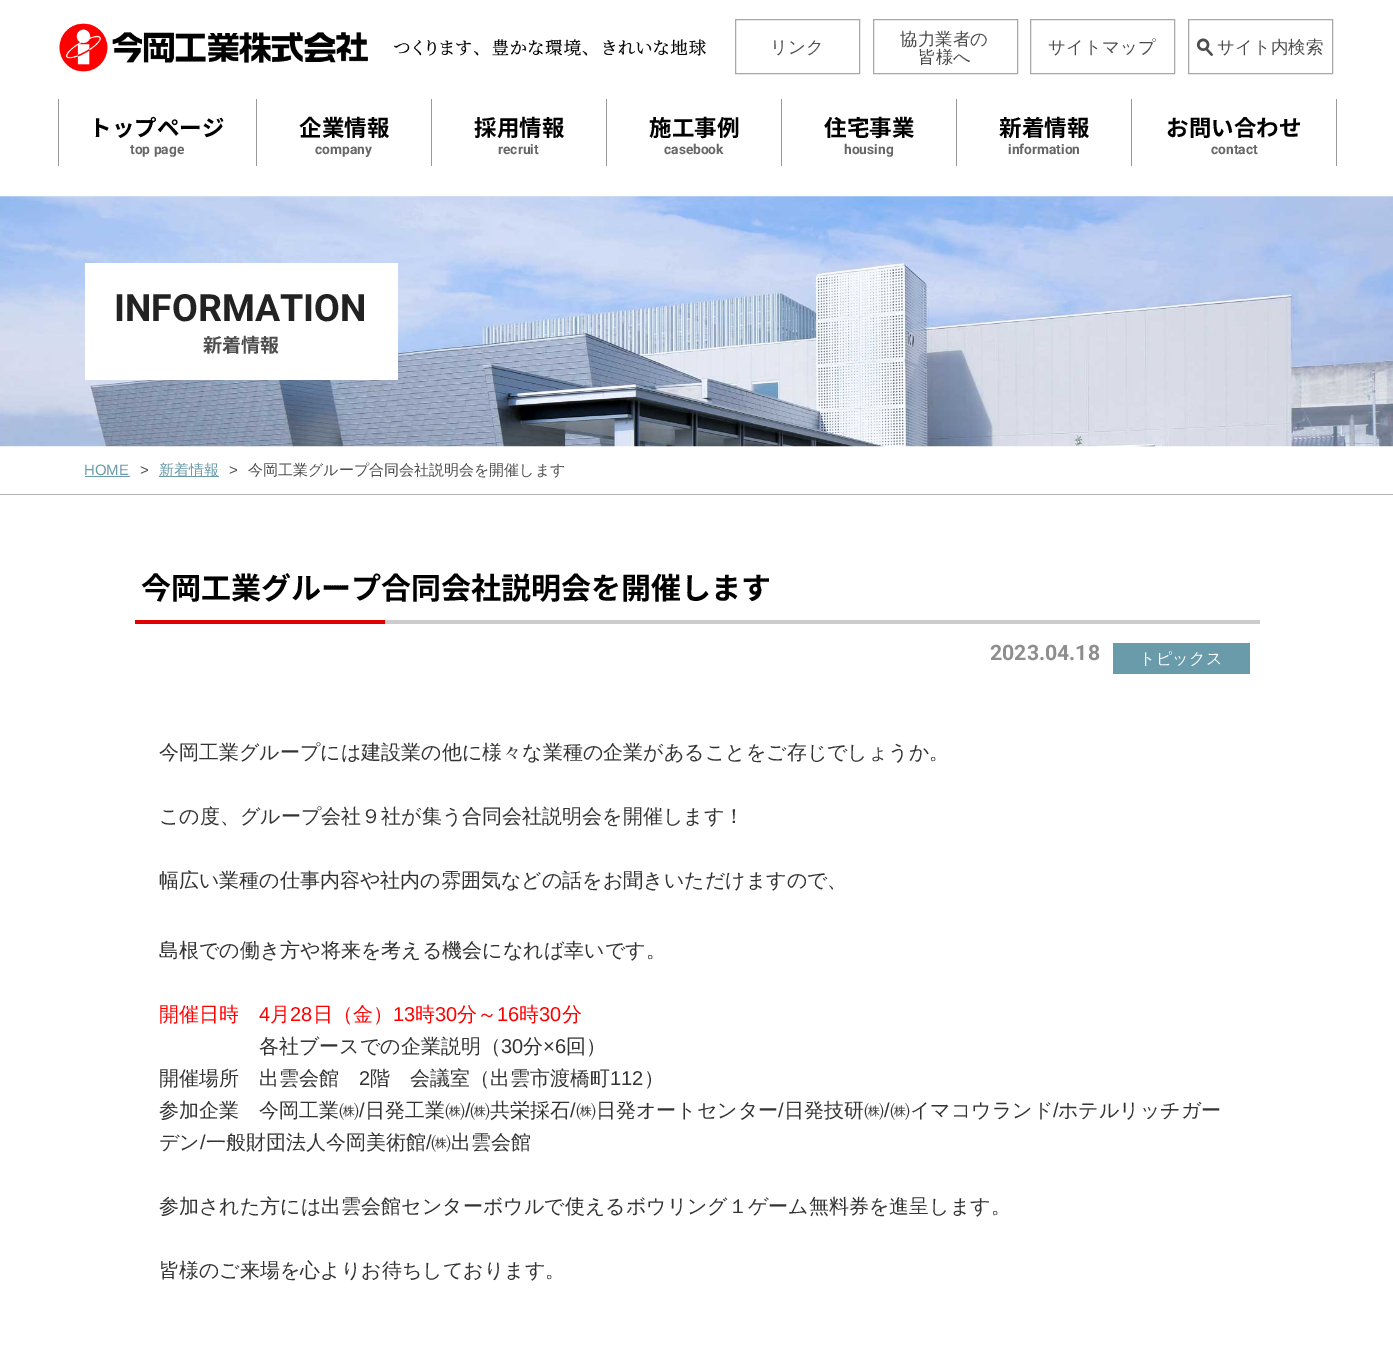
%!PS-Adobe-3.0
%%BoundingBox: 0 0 1393 1365
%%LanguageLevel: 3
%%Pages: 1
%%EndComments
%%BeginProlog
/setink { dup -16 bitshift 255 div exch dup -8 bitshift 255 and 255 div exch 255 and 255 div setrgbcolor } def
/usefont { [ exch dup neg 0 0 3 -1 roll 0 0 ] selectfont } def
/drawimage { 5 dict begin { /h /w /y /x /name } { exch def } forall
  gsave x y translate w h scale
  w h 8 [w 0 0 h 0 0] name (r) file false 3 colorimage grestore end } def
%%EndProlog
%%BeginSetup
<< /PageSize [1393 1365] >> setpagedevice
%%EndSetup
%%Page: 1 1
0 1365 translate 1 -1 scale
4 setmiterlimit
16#FFFFFF setink
0 0 1393 1365 rectfill
(img1.raw) 59 23 309 49 drawimage
(img2.raw) 394 39 313 17 drawimage
16#A8A8A8 setink
735.5 19.5 124 54 rectstroke
/WenQuanYiZenHei-Medium 17.5 usefont
16#4D4D4D setink
770 53 moveto (リンク) show
16#A8A8A8 setink
873.5 19.5 144 54 rectstroke
16#4D4D4D setink
900 45 moveto (協力業者の) show
918 63 moveto (皆様へ) show
16#A8A8A8 setink
1030.5 19.5 144 54 rectstroke
16#4D4D4D setink
1048 53 moveto (サイトマップ) show
16#A8A8A8 setink
1188.5 19.5 144 54 rectstroke
(img3.raw) 1196 38 17 18 drawimage
16#4D4D4D setink
1217 53 moveto (サイト内検索) show
16#999999 setink
256 99 1 67 rectfill
58 99 1 67 rectfill
/NotoSansJP-Bold 22.5 usefont
16#000000 setink
89 136 moveto (トップページ) show
/Roboto-Bold 13.75 usefont
16#666666 setink
130 154 moveto (top page) show
16#999999 setink
431 99 1 67 rectfill
/NotoSansJP-Bold 22.5 usefont
16#000000 setink
299 136 moveto (企業情報) show
/Roboto-Bold 13.75 usefont
16#666666 setink
315 154 moveto (company) show
16#999999 setink
606 99 1 67 rectfill
/NotoSansJP-Bold 22.5 usefont
16#000000 setink
474 136 moveto (採用情報) show
/Roboto-Bold 13.75 usefont
16#666666 setink
498 154 moveto (recruit) show
16#999999 setink
781 99 1 67 rectfill
/NotoSansJP-Bold 22.5 usefont
16#000000 setink
649 136 moveto (施工事例) show
/Roboto-Bold 13.75 usefont
16#666666 setink
664 154 moveto (casebook) show
16#999999 setink
956 99 1 67 rectfill
/NotoSansJP-Bold 22.5 usefont
16#000000 setink
824 136 moveto (住宅事業) show
/Roboto-Bold 13.75 usefont
16#666666 setink
844 154 moveto (housing) show
16#999999 setink
1131 99 1 67 rectfill
/NotoSansJP-Bold 22.5 usefont
16#000000 setink
999 136 moveto (新着情報) show
/Roboto-Bold 13.75 usefont
16#666666 setink
1008 154 moveto (information) show
16#999999 setink
1336 99 1 67 rectfill
/NotoSansJP-Bold 22.5 usefont
16#000000 setink
1166 136 moveto (お問い合わせ) show
/Roboto-Bold 13.75 usefont
16#666666 setink
1211 154 moveto (contact) show
(img4.raw) 0 196 1393 251 drawimage
16#FFFFFF setink
85 263 313 117 rectfill
/Roboto-Bold 37.5 usefont
16#222222 setink
114 321 moveto (INFORMATION) show
/NotoSansJP-Bold 19 usefont
16#4D4D4D setink
203 352 moveto (新着情報) show
16#B3B3B3 setink
0 494 1393 1 rectfill
/LiberationSans-Regular 15 usefont
16#6A9BAA setink
84 475 moveto (HOME) show
85 476 45 1 rectfill
16#4D4D4D setink
140 475 moveto (>) show
16#6A9BAA setink
159 476 60 1 rectfill
/WenQuanYiZenHei-Medium 15 usefont
159 475 moveto (新着情報) show
/LiberationSans-Regular 15 usefont
16#4D4D4D setink
229 475 moveto (>) show
/WenQuanYiZenHei-Medium 15 usefont
248 475 moveto (今岡工業グループ合同会社説明会を開催します) show
/NotoSansJP-Bold 30 usefont
16#000000 setink
141 599 moveto (今岡工業グループ合同会社説明会を開催します) show
16#E10000 setink
135 620 250 4 rectfill
16#CCCCCC setink
385 620 875 4 rectfill
/Roboto-Bold 21.25 usefont
16#8E8E8E setink
990 660 moveto (2023.04.18) show
16#6A9BAA setink
1113 643 137 31 rectfill
/WenQuanYiZenHei-Medium 16.25 usefont
16#FFFFFF setink
1139 664 moveto (トピックス) show
/WenQuanYiZenHei-Medium 20 usefont
16#333333 setink
[
    [(今岡工業グループには建設業の他に様々な業種の企業があることをご存じでしょうか。) 159 759]
    [(この度、グループ会社９社が集う合同会社説明会を開催します！) 159 823]
    [(幅広い業種の仕事内容や社内の雰囲気などの話をお聞きいただけますので、) 159 887]
    [(島根での働き方や将来を考える機会になれば幸いです。) 159 957]
] { aload pop moveto show } forall
16#FF0000 setink
159 1021 moveto (開催日時) show
/LiberationSans-Regular 20 usefont
259 1021 moveto (4) show
/WenQuanYiZenHei-Medium 20 usefont
270 1021 moveto (月) show
/LiberationSans-Regular 20 usefont
290 1021 moveto (28) show
/WenQuanYiZenHei-Medium 20 usefont
313 1021 moveto (日（金）) show
/LiberationSans-Regular 20 usefont
393 1021 moveto (13) show
/WenQuanYiZenHei-Medium 20 usefont
415 1021 moveto (時) show
/LiberationSans-Regular 20 usefont
435 1021 moveto (30) show
/WenQuanYiZenHei-Medium 20 usefont
457 1021 moveto (分～) show
/LiberationSans-Regular 20 usefont
497 1021 moveto (16) show
/WenQuanYiZenHei-Medium 20 usefont
519 1021 moveto (時) show
/LiberationSans-Regular 20 usefont
539 1021 moveto (30) show
/WenQuanYiZenHei-Medium 20 usefont
562 1021 moveto (分) show
16#333333 setink
259 1053 moveto (各社ブースでの企業説明（) show
/LiberationSans-Regular 20 usefont
501 1053 moveto (30) show
/WenQuanYiZenHei-Medium 20 usefont
523 1053 moveto (分) show
/LiberationSans-Regular 20 usefont
543 1053 moveto (×6) show
/WenQuanYiZenHei-Medium 20 usefont
566 1053 moveto (回）) show
159 1085 moveto (開催場所　出雲会館) show
/LiberationSans-Regular 20 usefont
359 1085 moveto (2) show
/WenQuanYiZenHei-Medium 20 usefont
370 1085 moveto (階　会議室（出雲市渡橋町) show
/LiberationSans-Regular 20 usefont
610 1085 moveto (112) show
/WenQuanYiZenHei-Medium 20 usefont
644 1085 moveto (）) show
159 1117 moveto (参加企業　今岡工業㈱) show
/LiberationSans-Regular 20 usefont
359 1117 moveto (/) show
/WenQuanYiZenHei-Medium 20 usefont
365 1117 moveto (日発工業㈱) show
/LiberationSans-Regular 20 usefont
465 1117 moveto (/) show
/WenQuanYiZenHei-Medium 20 usefont
470 1117 moveto (㈱共栄採石) show
/LiberationSans-Regular 20 usefont
570 1117 moveto (/) show
/WenQuanYiZenHei-Medium 20 usefont
576 1117 moveto (㈱日発オートセンター) show
/LiberationSans-Regular 20 usefont
778 1117 moveto (/) show
/WenQuanYiZenHei-Medium 20 usefont
784 1117 moveto (日発技研㈱) show
/LiberationSans-Regular 20 usefont
884 1117 moveto (/) show
/WenQuanYiZenHei-Medium 20 usefont
890 1117 moveto (㈱イマコウランド) show
/LiberationSans-Regular 20 usefont
1053 1117 moveto (/) show
/WenQuanYiZenHei-Medium 20 usefont
1058 1117 moveto (ホテルリッチガー) show
159 1149 moveto (デン) show
/LiberationSans-Regular 20 usefont
200 1149 moveto (/) show
/WenQuanYiZenHei-Medium 20 usefont
206 1149 moveto (一般財団法人今岡美術館) show
/LiberationSans-Regular 20 usefont
426 1149 moveto (/) show
/WenQuanYiZenHei-Medium 20 usefont
[
    [(㈱出雲会館) 431 1149]
    [(参加された方には出雲会館センターボウルで使えるボウリング１ゲーム無料券を進呈します。) 159 1213]
    [(皆様のご来場を心よりお待ちしております。) 159 1277]
] { aload pop moveto show } forall
showpage
%%EOF
